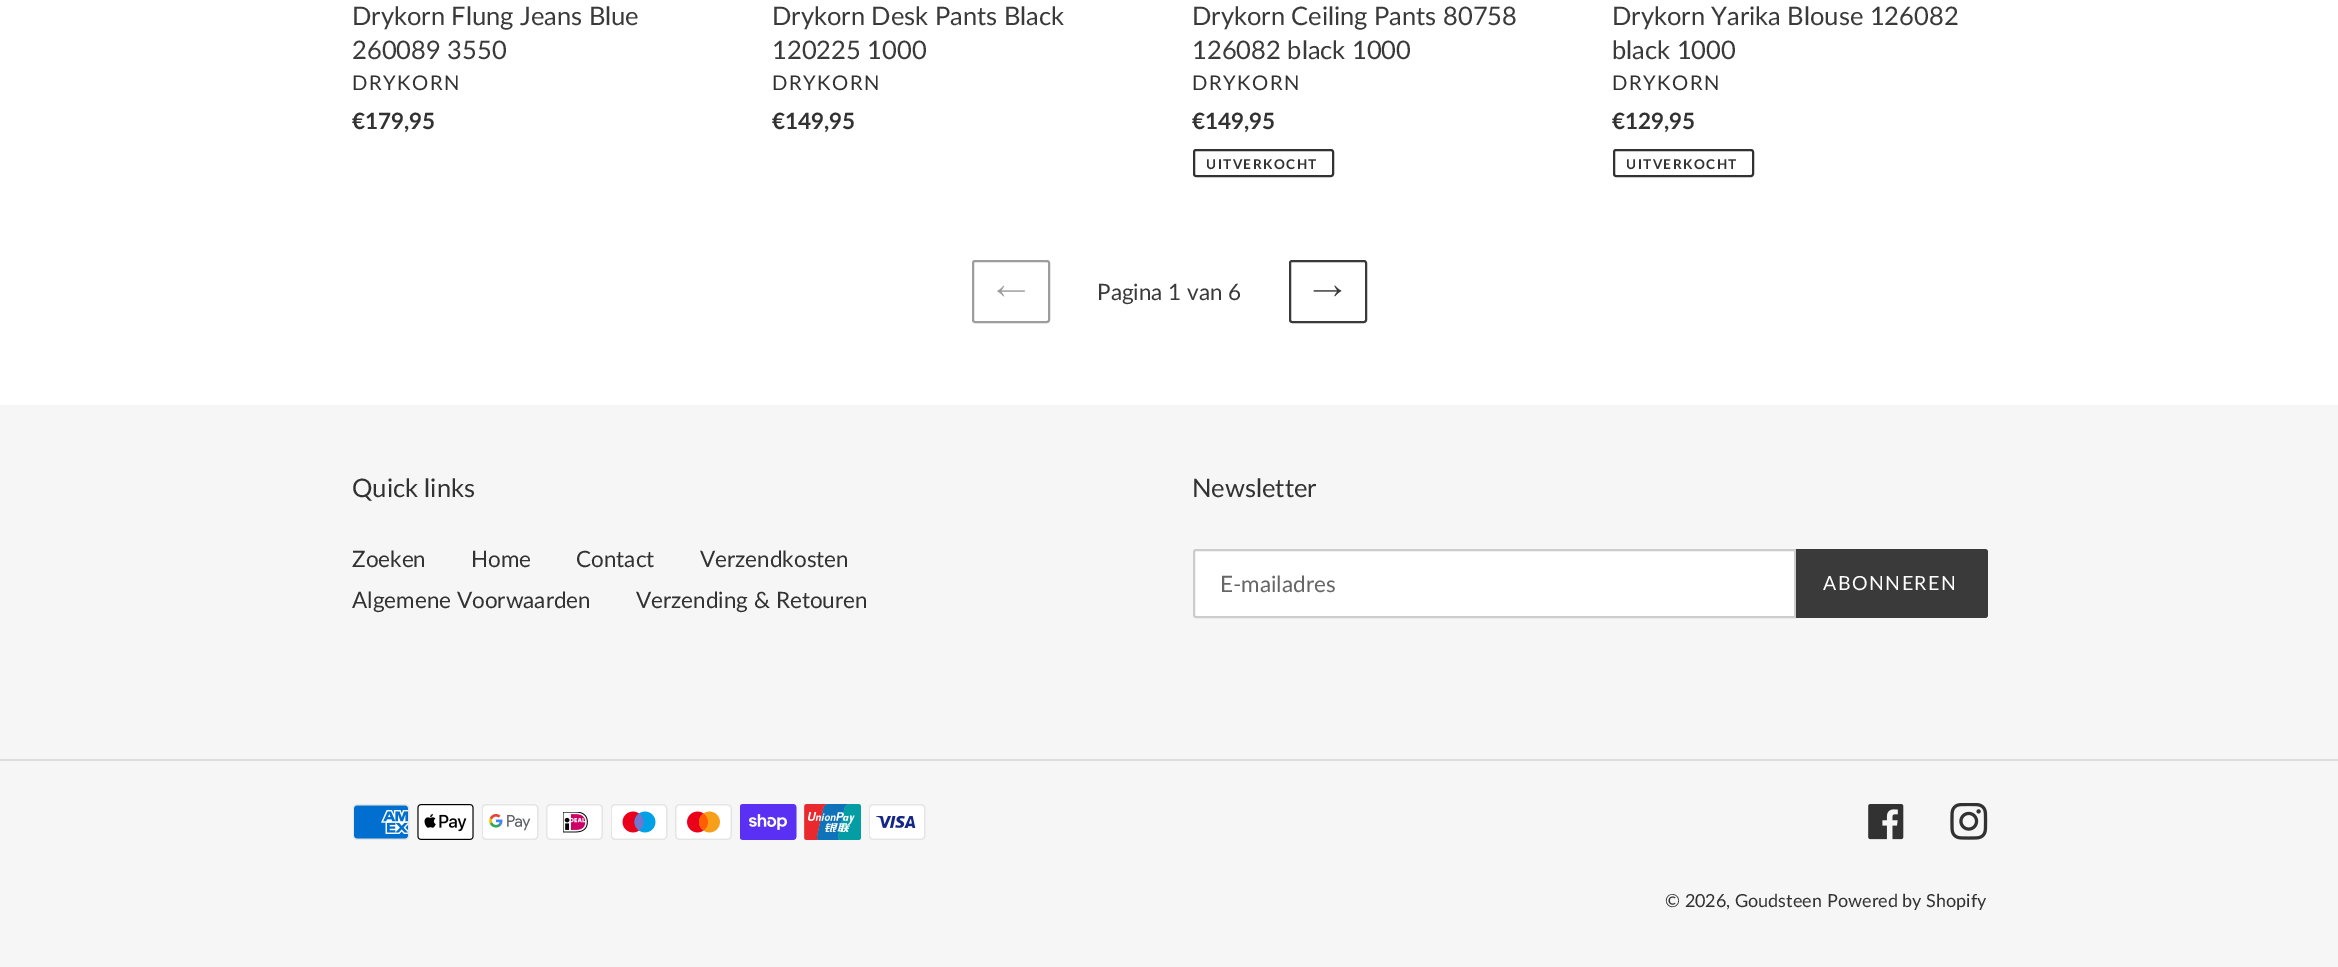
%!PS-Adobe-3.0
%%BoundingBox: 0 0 2338 967
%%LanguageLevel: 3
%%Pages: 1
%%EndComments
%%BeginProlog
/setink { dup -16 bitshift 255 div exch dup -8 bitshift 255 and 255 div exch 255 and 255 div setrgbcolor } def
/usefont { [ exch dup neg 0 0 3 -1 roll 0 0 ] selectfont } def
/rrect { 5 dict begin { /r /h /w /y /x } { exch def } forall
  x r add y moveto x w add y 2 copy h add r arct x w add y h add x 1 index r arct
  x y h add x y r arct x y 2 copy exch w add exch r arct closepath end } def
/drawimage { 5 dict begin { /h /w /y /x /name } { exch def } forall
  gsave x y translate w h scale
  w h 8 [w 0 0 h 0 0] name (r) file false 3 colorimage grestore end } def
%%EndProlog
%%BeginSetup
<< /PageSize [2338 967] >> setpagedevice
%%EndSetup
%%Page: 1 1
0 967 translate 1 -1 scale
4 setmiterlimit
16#FFFFFF setink
0 0 2338 967 rectfill
/Lato-Regular 25.5 usefont
16#3A3A3A setink
352 25 moveto (Drykorn Flung Jeans Blue) show
352 59 moveto (260089 3550) show
/Lato-Regular 20.25 usefont
16#333232 setink
352 90 moveto 1.5 0 (DRYKORN) ashow
/Lato-Bold 22.5 usefont
352 129 moveto (€179,95) show
/Lato-Regular 25.5 usefont
16#3A3A3A setink
772 25 moveto (Drykorn Desk Pants Black) show
772 59 moveto (120225 1000) show
/Lato-Regular 20.25 usefont
16#333232 setink
772 90 moveto 1.5 0 (DRYKORN) ashow
/Lato-Bold 22.5 usefont
772 129 moveto (€149,95) show
/Lato-Regular 25.5 usefont
16#3A3A3A setink
1192 25 moveto (Drykorn Ceiling Pants 80758) show
1192 59 moveto (126082 black 1000) show
/Lato-Regular 20.25 usefont
16#333232 setink
1192 90 moveto 1.5 0 (DRYKORN) ashow
/Lato-Bold 22.5 usefont
1192 129 moveto (€149,95) show
2 setlinewidth
1194 150 139 26 2 rrect stroke
/Lato-Bold 13.5 usefont
1206 169 moveto 1.5 0 (UITVERKOCHT) ashow
/Lato-Regular 25.5 usefont
16#3A3A3A setink
1612 25 moveto (Drykorn Yarika Blouse 126082) show
1612 59 moveto (black 1000) show
/Lato-Regular 20.25 usefont
16#333232 setink
1612 90 moveto 1.5 0 (DRYKORN) ashow
/Lato-Bold 22.5 usefont
1612 129 moveto (€129,95) show
1614 150 139 26 2 rrect stroke
/Lato-Bold 13.5 usefont
1626 169 moveto 1.5 0 (UITVERKOCHT) ashow
16#9D9D9D setink
973 261 76 61 2 rrect stroke
(img1.raw) 997 285 28 12 drawimage
/Lato-Regular 22.5 usefont
16#3A3A3A setink
1097 300 moveto (Pagina 1 van 6) show
1290 261 76 61 2 rrect stroke
(img2.raw) 1313 285 29 12 drawimage
16#F6F6F6 setink
0 405 2338 562 rectfill
/Lato-Regular 25.5 usefont
16#333232 setink
352 497 moveto (Quick links) show
/Lato-Regular 22.5 usefont
[
    [(Zoeken) 352 567]
    [(Home) 471 567]
    [(Contact) 576 567]
    [(Verzendkosten) 700 567]
    [(Algemene Voorwaarden) 352 608]
    [(Verzending & Retouren) 636 608]
] { aload pop moveto show } forall
/Lato-Regular 25.5 usefont
1192 497 moveto (Newsletter) show
16#FFFFFF setink
1196 550 moveto 1795 550 lineto 1795 617 lineto 1196 617 lineto 1195 617 1194 616 1194 615 curveto 1194 552 lineto 1194 551 1195 550 1196 550 curveto closepath gsave fill grestore
16#CCCCCC setink
stroke
/Lato-Regular 22.5 usefont
16#666666 setink
1220 592 moveto (E-mailadres) show
16#3A3A3A setink
1796 549 moveto 1985 549 lineto 1986.5 549 1988 550.5 1988 552 curveto 1988 615 lineto 1988 616.5 1986.5 618 1985 618 curveto 1796 618 lineto closepath fill
/Lato-Regular 19.5 usefont
16#FFFFFF setink
1823 590 moveto 1.5 0 (ABONNEREN) ashow
16#DDDDDD setink
0 759 2338 2 rectfill
(img3.raw) 353 804 57 36 drawimage
(img4.raw) 417 804 57 36 drawimage
(img5.raw) 482 804 57 36 drawimage
(img6.raw) 546 804 57 36 drawimage
(img7.raw) 611 804 57 36 drawimage
(img8.raw) 675 804 57 36 drawimage
(img9.raw) 740 804 57 36 drawimage
(img10.raw) 804 804 57 36 drawimage
(img11.raw) 869 804 57 36 drawimage
(img12.raw) 1868 804 36 36 drawimage
(img13.raw) 1950 803 38 37 drawimage
/Lato-Regular 18 usefont
16#333232 setink
1665 907 moveto (© 2026, Goudsteen) show
1827 907 moveto (Powered by Shopify) show
showpage
%%EOF
